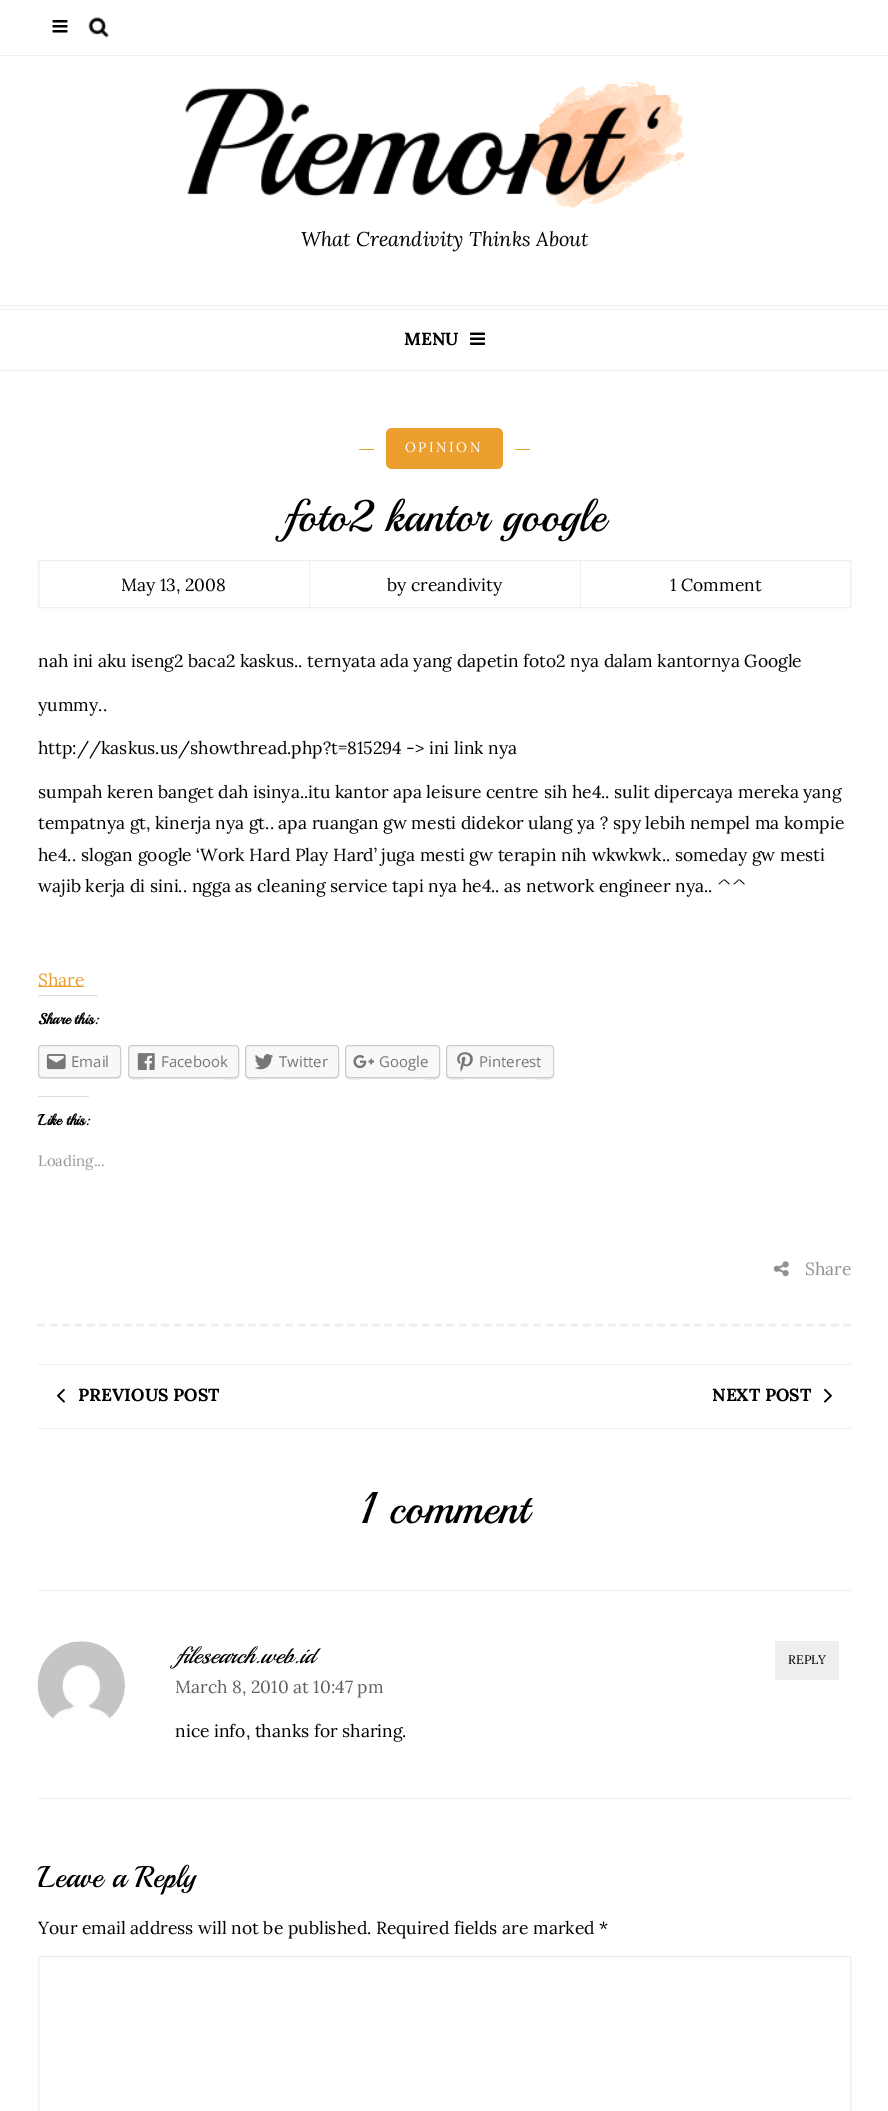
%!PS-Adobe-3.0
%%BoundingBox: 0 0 888 2111
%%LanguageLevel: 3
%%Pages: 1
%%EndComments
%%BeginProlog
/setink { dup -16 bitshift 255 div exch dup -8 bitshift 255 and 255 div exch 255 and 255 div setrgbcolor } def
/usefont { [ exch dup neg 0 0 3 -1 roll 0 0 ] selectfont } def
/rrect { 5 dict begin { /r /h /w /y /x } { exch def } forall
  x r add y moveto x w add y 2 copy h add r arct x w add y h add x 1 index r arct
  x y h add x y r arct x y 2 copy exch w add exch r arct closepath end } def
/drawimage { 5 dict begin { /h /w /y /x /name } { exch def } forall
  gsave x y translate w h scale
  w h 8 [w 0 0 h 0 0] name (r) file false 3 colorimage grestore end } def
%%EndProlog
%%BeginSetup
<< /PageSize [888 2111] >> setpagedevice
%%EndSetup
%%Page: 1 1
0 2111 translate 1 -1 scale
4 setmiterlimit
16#FFFFFF setink
0 0 888 2111 rectfill
16#EEEEEE setink
0 55 888 1 rectfill
(img1.raw) 52 20 16 13 drawimage
(img2.raw) 88 17 21 21 drawimage
(img3.raw) 185 81 500 127 drawimage
/Lora-Italic 20 usefont
16#000000 setink
301 246 moveto (What Creandivity Thinks About) show
[
    [0 305 888 1 16#EEEEEE]
    [0 309 888 1 16#EEEEEE]
    [0 370 888 1 16#EEEEEE]
] { aload pop setink rectfill } forall
/Lora-Bold 17.5 usefont
16#000000 setink
404 345 moveto (MENU) show
(img4.raw) 470 332 15 13 drawimage
16#EEEEEE setink
2.5 setlinewidth
[7.5 4.9] 0 setdash
37.5 1325 moveto 851 1325 lineto stroke
16#EC9F2E setink
386 428 117 41 6 rrect fill
359 449 15 1 rectfill
/Lora-Regular 13.75 usefont
16#FFFFFF setink
405 452 moveto 2.5 0 (OPINION) ashow
16#EC9F2E setink
515 449 15 1 rectfill
/Playball-Regular 43.75 usefont
16#000000 setink
283 531 moveto (foto2 kantor google) show
16#EEEEEE setink
1 setlinewidth
[] 0 setdash
38.5 560.5 812 47 rectstroke
/Lora-Regular 17.5 usefont
16#000000 setink
121 591 moveto (May 13, 2008) show
16#EEEEEE setink
309 561 1 45 rectfill
16#000000 setink
387 591 moveto (by creandivity) show
16#EEEEEE setink
580 561 1 45 rectfill
16#000000 setink
[
    [(1 Comment) 670 591]
    [(nah ini aku iseng2 baca2 kaskus.. ternyata ada yang dapetin foto2 nya dalam kantornya Google) 38 667]
    [(yummy..) 38 711]
    [(http://kaskus.us/showthread.php?t=815294 -> ini link nya) 38 754]
    [(sumpah keren banget dah isinya..itu kantor apa leisure centre sih he4.. sulit dipercaya mereka yang) 38 798]
    [(tempatnya gt, kinerja nya gt.. apa ruangan gw mesti didekor ulang ya ? spy lebih nempel ma kompie) 38 829]
    [(he4.. slogan google ‘Work Hard Play Hard’ juga mesti gw terapin nih wkwkwk.. someday gw mesti) 38 861]
    [(wajib kerja di sini.. ngga as cleaning service tapi nya he4.. as network engineer nya.. ^^) 38 892]
] { aload pop moveto show } forall
16#EC9F2E setink
38 986 46 1 rectfill
38 986 moveto (Share) show
16#DDDDDD setink
38 995 60 1 rectfill
/Playball-Bold 15 usefont
16#000000 setink
38 1024 moveto (Share this:) show
16#EBEBEB setink
38 1076 moveto 38 1078 40 1079 42 1079 curveto 117 1079 lineto 119 1079 121 1077 121 1075 curveto 120 1076 lineto 118 1077 lineto 41 1077 lineto closepath fill
16#F8F8F8 setink
38.5 1045.5 82 32 3.5 rrect gsave fill grestore
16#CCCCCC setink
stroke
(img5.raw) 46 1054 20 16 drawimage
/OpenSans-Regular 15 usefont
16#777777 setink
71 1067 moveto (Email) show
16#EBEBEB setink
128 1076 moveto 129 1082 143 1079 149 1079 curveto 218 1079 lineto 224 1079 238 1082 239 1076 curveto 239 1049 lineto 239 1070 lineto 239 1072 239 1077 235 1078 curveto 131 1078 lineto 130 1077 129 1077 128 1076 curveto closepath fill
16#F8F8F8 setink
128.5 1045.5 110 32 3.5 rrect gsave fill grestore
16#CCCCCC setink
stroke
(img6.raw) 137 1053 18 17 drawimage
16#777777 setink
161 1067 moveto (Facebook) show
16#EBEBEB setink
245 1074 moveto 245 1083 258 1079 263 1079 curveto 335 1079 lineto 341 1079 339 1070 339 1067 curveto 339 1049 lineto 339 1070 lineto 339 1072 339 1077 335 1078 curveto 263 1078 lineto 256 1078 245 1080 245 1074 curveto closepath fill
16#F8F8F8 setink
245.5 1045.5 93 32 3.5 rrect gsave fill grestore
16#CCCCCC setink
stroke
(img7.raw) 254 1054 20 16 drawimage
16#777777 setink
279 1067 moveto (Twitter) show
16#EBEBEB setink
345 1074 moveto 345 1083 358 1079 364 1079 curveto 422 1079 lineto 427 1079 440 1083 440 1074 curveto 440 1076 438 1078 436 1078 curveto 349 1078 lineto 347 1078 345 1076 345 1074 curveto closepath fill
16#F8F8F8 setink
345.5 1045.5 94 32 3.5 rrect gsave fill grestore
16#CCCCCC setink
stroke
(img8.raw) 353 1055 22 14 drawimage
16#777777 setink
379 1067 moveto (Google) show
16#EBEBEB setink
446 1049 moveto 446 1076 lineto 447 1082 461 1079 467 1079 curveto 533 1079 lineto 539 1079 553 1082 554 1076 curveto 554 1049 lineto 554 1070 lineto 554 1072 554 1077 550 1078 curveto 450 1078 lineto 446 1077 446 1072 446 1070 curveto closepath fill
16#F8F8F8 setink
446.5 1045.5 107 32 3.5 rrect gsave fill grestore
16#CCCCCC setink
stroke
(img9.raw) 457 1052 16 20 drawimage
16#777777 setink
479 1067 moveto (Pinterest) show
16#DDDDDD setink
38 1096 51 1 rectfill
/Playball-Bold 15 usefont
16#000000 setink
38 1125 moveto (Like this:) show
/Lora-Regular 15 usefont
16#999999 setink
38 1166 moveto (Loading...) show
(img10.raw) 773 1261 16 16 drawimage
/Lora-Regular 17.5 usefont
16#8F9294 setink
805 1275 moveto (Share) show
16#EEEEEE setink
38 1364 813 1 rectfill
38 1428 813 1 rectfill
(img11.raw) 56 1388 9 15 drawimage
/Lora-Bold 17.5 usefont
16#000000 setink
78 1401 moveto (PREVIOUS POST) show
712 1401 moveto (NEXT POST) show
(img12.raw) 824 1388 8 15 drawimage
/Playball-Regular 43.75 usefont
361 1523 moveto (1 comment) show
16#EEEEEE setink
38 1590 813 1 rectfill
38 1798 813 1 rectfill
(img13.raw) 37 1641 88 78 drawimage
/Playball-Italic 22.5 usefont
16#000000 setink
175 1663 moveto (filesearch.web.id) show
/Lora-Regular 17.5 usefont
16#606060 setink
175 1693 moveto (March 8, 2010 at 10:47 pm) show
16#000000 setink
175 1737 moveto (nice info, thanks for sharing.) show
16#EEEEEE setink
775 1641 64 39 rectfill
/Lora-Regular 12.5 usefont
16#000000 setink
788 1664 moveto (REPLY) show
/Playball-Regular 30 usefont
38 1887 moveto (Leave a Reply) show
/Lora-Regular 17.5 usefont
38 1934 moveto (Your email address will not be published. Required fields are marked *) show
16#EEEEEE setink
38.5 1956.5 812 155 rectstroke
showpage
%%EOF
